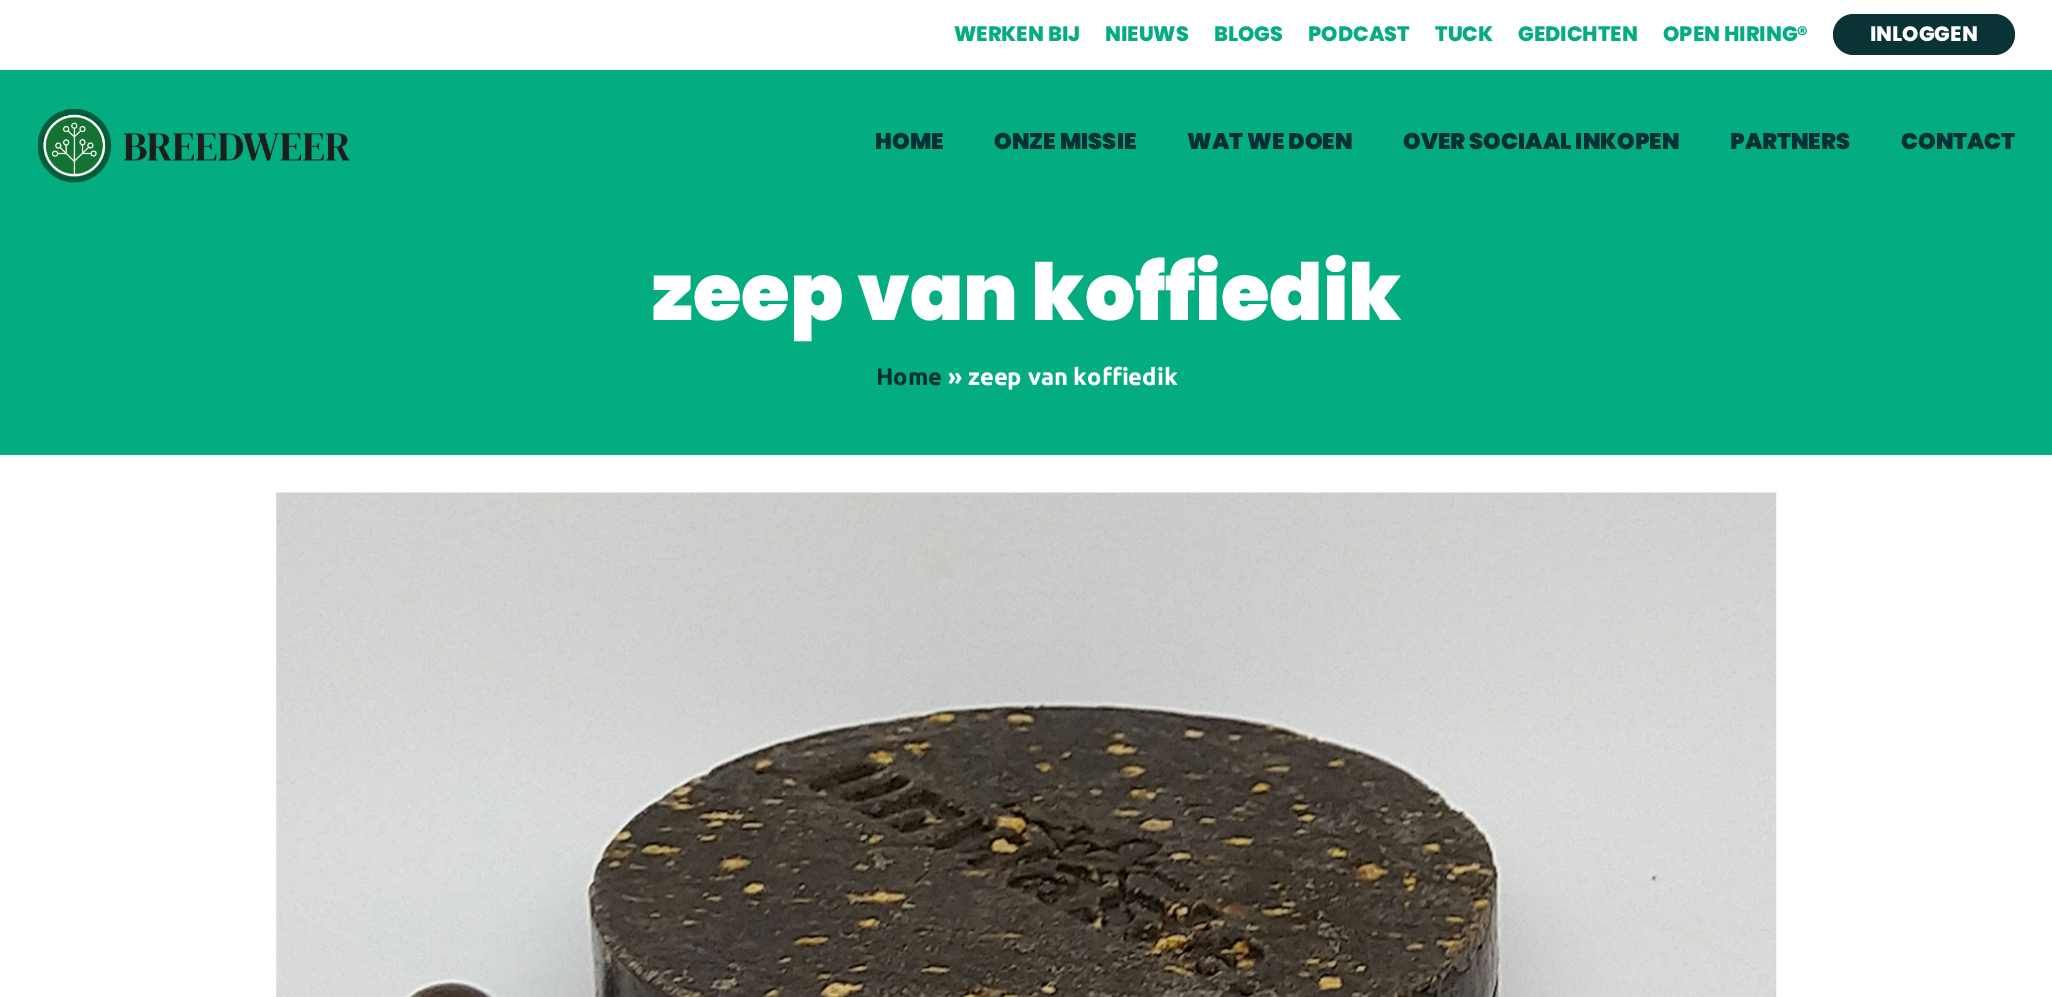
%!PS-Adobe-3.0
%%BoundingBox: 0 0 2052 997
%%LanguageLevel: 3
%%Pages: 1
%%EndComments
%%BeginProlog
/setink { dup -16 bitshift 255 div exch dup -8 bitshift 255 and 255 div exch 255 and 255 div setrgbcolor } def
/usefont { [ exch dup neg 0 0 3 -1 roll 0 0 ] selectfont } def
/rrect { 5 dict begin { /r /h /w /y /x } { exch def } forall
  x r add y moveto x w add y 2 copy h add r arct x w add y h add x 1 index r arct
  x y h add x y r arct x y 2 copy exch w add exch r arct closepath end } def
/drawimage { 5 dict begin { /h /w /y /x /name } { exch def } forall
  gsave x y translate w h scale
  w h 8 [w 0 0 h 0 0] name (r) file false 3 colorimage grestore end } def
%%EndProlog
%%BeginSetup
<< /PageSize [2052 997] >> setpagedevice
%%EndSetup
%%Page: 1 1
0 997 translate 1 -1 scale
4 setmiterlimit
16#FFFFFF setink
0 0 2052 997 rectfill
16#04AD80 setink
0 70 2052 1 rectfill
/Poppins-ExtraBold 20.75 usefont
[
    [(WERKEN BIJ) 954 41]
    [(NIEUWS) 1105 41]
    [(BLOGS) 1214 41]
    [(PODCAST) 1308 41]
    [(TUCK) 1435 41]
    [(GEDICHTEN) 1518 41]
    [(OPEN HIRING®) 1663 41]
] { aload pop moveto show } forall
16#093334 setink
1833 14 182 41 20.5 rrect fill
16#FFFFFF setink
1870 41 moveto (INLOGGEN) show
16#04AD80 setink
0 71 2052 384 rectfill
(img1.raw) 38 109 312 74 drawimage
/Poppins-Black 22.5 usefont
16#033034 setink
[
    [(HOME) 875 149]
    [(ONZE MISSIE) 994 149]
    [(WAT WE DOEN) 1187 149]
    [(OVER SOCIAAL INKOPEN) 1403 149]
    [(PARTNERS) 1730 149]
    [(CONTACT) 1901 149]
] { aload pop moveto show } forall
/Poppins-Black 78.75 usefont
16#FFFFFF setink
652 320 moveto (zeep van koffiedik) show
/Ubuntu-Bold 23.75 usefont
16#033034 setink
876 385 moveto (Home) show
16#FFFFFF setink
948 385 moveto (» zeep van koffiedik) show
(img2.raw) 276 492 1501 505 drawimage
showpage
%%EOF
